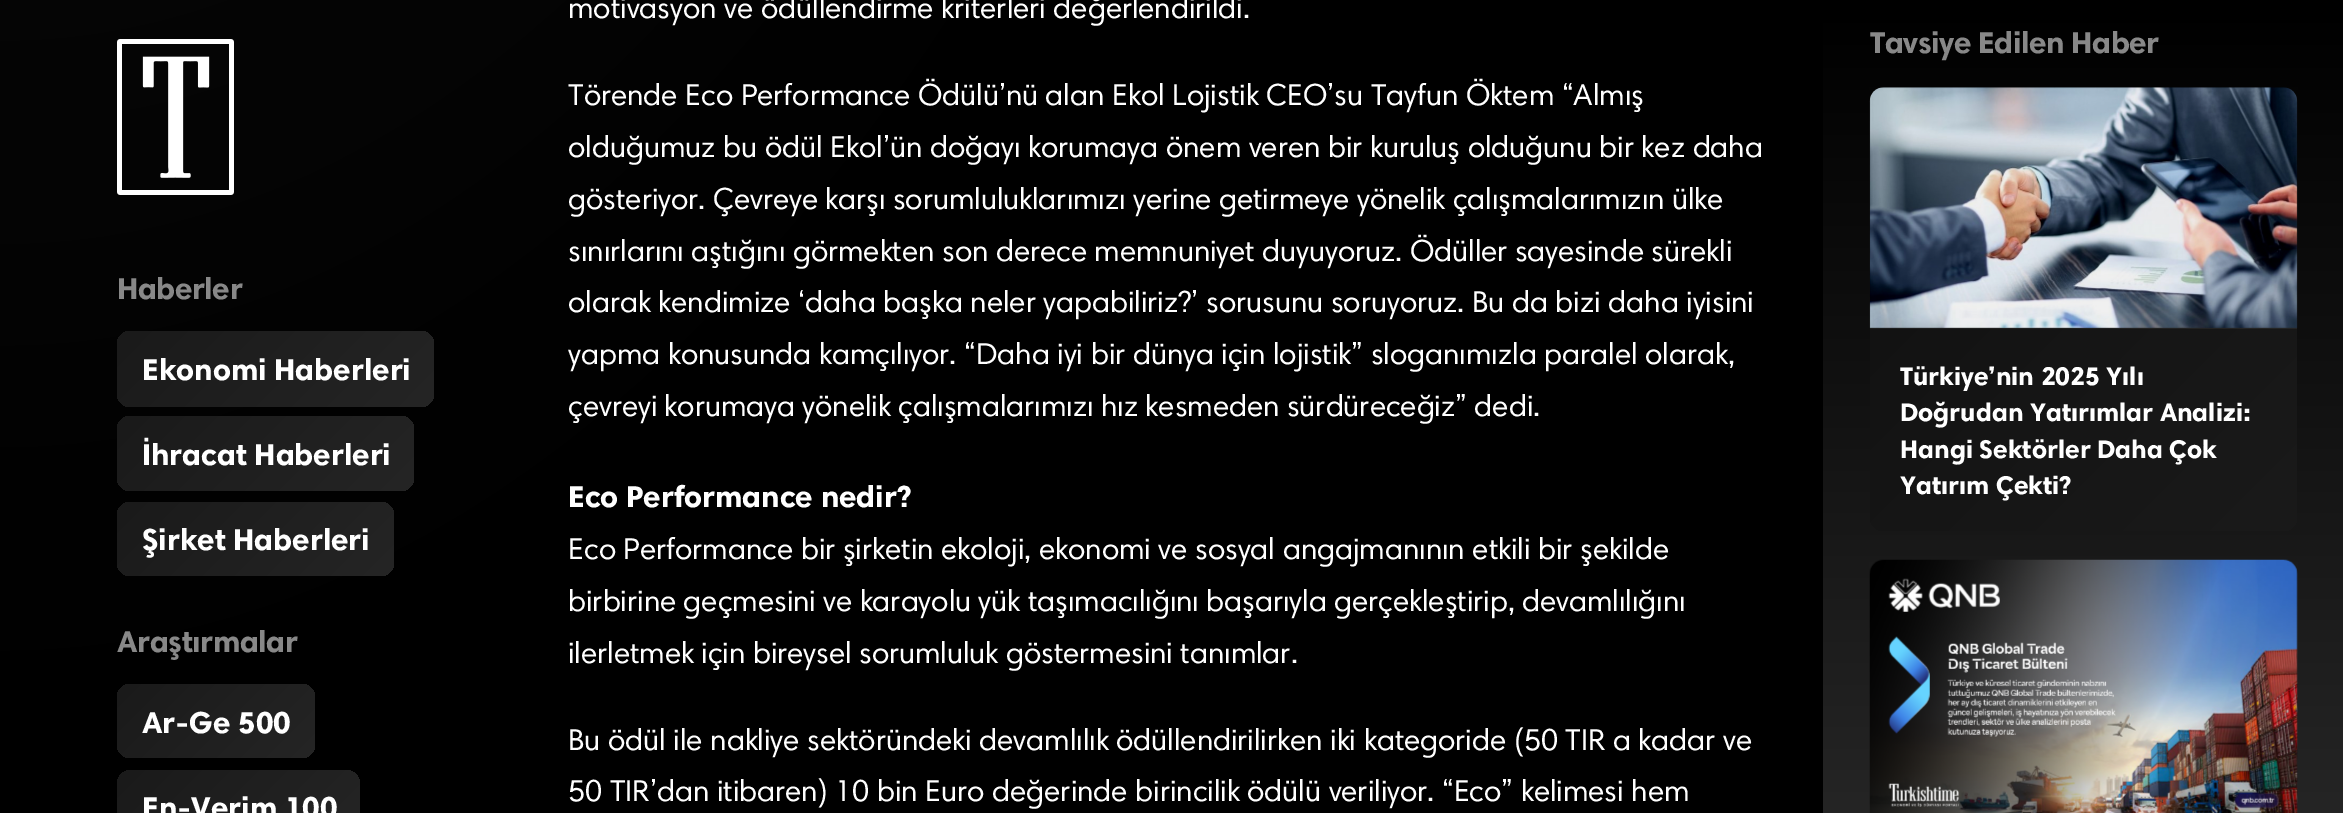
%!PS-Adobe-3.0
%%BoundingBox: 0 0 2343 813
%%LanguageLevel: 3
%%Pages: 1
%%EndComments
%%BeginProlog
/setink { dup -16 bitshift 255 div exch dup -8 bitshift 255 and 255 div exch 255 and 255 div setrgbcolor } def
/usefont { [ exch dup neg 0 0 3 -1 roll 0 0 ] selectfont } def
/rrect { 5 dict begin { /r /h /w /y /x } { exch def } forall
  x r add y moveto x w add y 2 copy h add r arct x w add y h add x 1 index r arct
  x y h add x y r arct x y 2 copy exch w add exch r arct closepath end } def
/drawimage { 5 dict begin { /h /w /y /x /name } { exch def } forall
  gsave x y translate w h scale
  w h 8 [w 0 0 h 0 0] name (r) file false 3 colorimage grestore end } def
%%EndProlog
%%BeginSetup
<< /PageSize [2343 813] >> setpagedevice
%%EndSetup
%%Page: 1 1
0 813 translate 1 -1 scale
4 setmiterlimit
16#FFFFFF setink
0 0 2343 813 rectfill
gsave 0 0 moveto 1823 0 lineto 1823 813 lineto 0 813 lineto closepath clip newpath 0 -2398 translate 3316 6504 scale
<< /ShadingType 3 /ColorSpace /DeviceRGB /Coords [0 0 0 0 0 1] /Extend [true true] /Function << /FunctionType 3 /Domain [0 1] /Functions [<< /FunctionType 2 /Domain [0 1] /C0 [0.078 0.078 0.078] /C1 [0 0 0] /N 1 >> << /FunctionType 2 /Domain [0 1] /C0 [0 0 0] /C1 [0 0 0] /N 1 >>] /Bounds [0.5] /Encode [0 1 0 1] >> >> shfill grestore
(img1.raw) 117 39 117 156 drawimage
/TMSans-Bold 30.5 usefont
16#888888 setink
117 299 moveto -0.4 0 (Haberler) ashow
gsave 117 331 317 76 14 rrect clip newpath
<< /ShadingType 2 /ColorSpace /DeviceRGB /Coords [177 271 374 467] /Extend [true true] /Function << /FunctionType 2 /Domain [0 1] /C0 [0.102 0.102 0.102] /C1 [0.145 0.145 0.145] /N 1 >> >> shfill grestore
16#FFFFFF setink
142 380 moveto (Ekonomi Haberleri) show
gsave 117 416 297 75 14 rrect clip newpath
<< /ShadingType 2 /ColorSpace /DeviceRGB /Coords [173 361 358 546] /Extend [true true] /Function << /FunctionType 2 /Domain [0 1] /C0 [0.102 0.102 0.102] /C1 [0.145 0.145 0.145] /N 1 >> >> shfill grestore
142 465 moveto (İhracat Haberleri) show
gsave 117 502 277 74 14 rrect clip newpath
<< /ShadingType 2 /ColorSpace /DeviceRGB /Coords [168 451 343 627] /Extend [true true] /Function << /FunctionType 2 /Domain [0 1] /C0 [0.102 0.102 0.102] /C1 [0.145 0.145 0.145] /N 1 >> >> shfill grestore
142 550 moveto (Şirket Haberleri) show
16#888888 setink
117 652 moveto -0.4 0 (Araştırmalar) ashow
gsave 117 684 198 74 14 rrect clip newpath
<< /ShadingType 2 /ColorSpace /DeviceRGB /Coords [148 653 284 789] /Extend [true true] /Function << /FunctionType 2 /Domain [0 1] /C0 [0.102 0.102 0.102] /C1 [0.145 0.145 0.145] /N 1 >> >> shfill grestore
16#FFFFFF setink
142 733 moveto (Ar-Ge 500) show
gsave 131 770 moveto 346 770 lineto 353.5 770 360 776.5 360 784 curveto 360 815 lineto 117 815 lineto 117 784 lineto 117 776.5 123.5 770 131 770 curveto closepath clip newpath
<< /ShadingType 2 /ColorSpace /DeviceRGB /Coords [159 727 318 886] /Extend [true true] /Function << /FunctionType 2 /Domain [0 1] /C0 [0.102 0.102 0.102] /C1 [0.145 0.145 0.145] /N 1 >> >> shfill grestore
142 818 moveto (En-Verim 100) show
/TMSans-Regular 30.5 usefont
[
    [(motivasyon ve ödüllendirme kriterleri değerlendirildi.) 568 18]
    [(Törende Eco Performance Ödülü’nü alan Ekol Lojistik CEO’su Tayfun Öktem “Almış) 568 105]
    [(olduğumuz bu ödül Ekol’ün doğayı korumaya önem veren bir kuruluş olduğunu bir kez daha) 568 157]
] { aload pop moveto show } forall
568 209 moveto -0.25 0 32 (gösteriyor. Çevreye karşı sorumluluklarımızı yerine getirmeye yönelik çalışmalarımızın ülke) widthshow
568 261 moveto -0.25 0 32 (sınırlarını aştığını görmekten son derece memnuniyet duyuyoruz. Ödüller sayesinde sürekli) widthshow
568 312 moveto (olarak kendimize ‘daha başka neler yapabiliriz?’ sorusunu soruyoruz. Bu da bizi daha iyisini) show
568 364 moveto (yapma konusunda kamçılıyor. “Daha iyi bir dünya için lojistik” sloganımızla paralel olarak,) show
568 416 moveto -0.25 0 32 (çevreyi korumaya yönelik çalışmalarımızı hız kesmeden sürdüreceğiz” dedi.) widthshow
/TMSans-Bold 30.5 usefont
568 507 moveto (Eco Performance nedir?) show
/TMSans-Regular 30.5 usefont
568 559 moveto (Eco Performance bir şirketin ekoloji, ekonomi ve sosyal angajmanının etkili bir şekilde) show
568 611 moveto -0.25 0 32 (birbirine geçmesini ve karayolu yük taşımacılığını başarıyla gerçekleştirip, devamlılığını) widthshow
568 663 moveto -0.25 0 32 (ilerletmek için bireysel sorumluluk göstermesini tanımlar.) widthshow
568 750 moveto (Bu ödül ile nakliye sektöründeki devamlılık ödüllendirilirken iki kategoride \(50 TIR a kadar ve) show
568 801 moveto (50 TIR’dan itibaren\) 10 bin Euro değerinde birincilik ödülü veriliyor. “Eco” kelimesi hem) show
gsave 1823 0 moveto 2343 0 lineto 2343 813 lineto 1823 813 lineto closepath clip newpath
<< /ShadingType 2 /ColorSpace /DeviceRGB /Coords [2084 0 2084 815] /Extend [true true] /Function << /FunctionType 2 /Domain [0 1] /C0 [0 0 0] /C1 [0.145 0.145 0.145] /N 1 >> >> shfill grestore
/TMSans-Bold 30.5 usefont
16#888888 setink
1870 53 moveto -0.4 0 (Tavsiye Edilen Haber) ashow
gsave 1870 88 427 443 14 rrect clip newpath
<< /ShadingType 2 /ColorSpace /DeviceRGB /Coords [1866 92 2301 527] /Extend [true true] /Function << /FunctionType 2 /Domain [0 1] /C0 [0.059 0.059 0.059] /C1 [0.102 0.102 0.102] /N 1 >> >> shfill grestore
gsave 1884 88 moveto 2283 88 lineto 2290.5 88 2297 94.5 2297 102 curveto 2297 329 lineto 1870 329 lineto 1870 102 lineto 1870 94.5 1876.5 88 1884 88 curveto closepath clip newpath
<< /ShadingType 2 /ColorSpace /DeviceRGB /Coords [1916 41 2251 375] /Extend [true true] /Function << /FunctionType 2 /Domain [0 1] /C0 [0.102 0.102 0.102] /C1 [0.145 0.145 0.145] /N 1 >> >> shfill grestore
(img2.raw) 1869 87 429 241 drawimage
/TMSans-Bold 25.75 usefont
16#FFFFFF setink
[
    [(Türkiye’nin 2025 Yılı) 1900 385]
    [(Doğrudan Yatırımlar Analizi:) 1900 421]
    [(Hangi Sektörler Daha Çok) 1900 458]
    [(Yatırım Çekti?) 1900 494]
] { aload pop moveto show } forall
(img3.raw) 1869 559 429 254 drawimage
showpage
%%EOF
